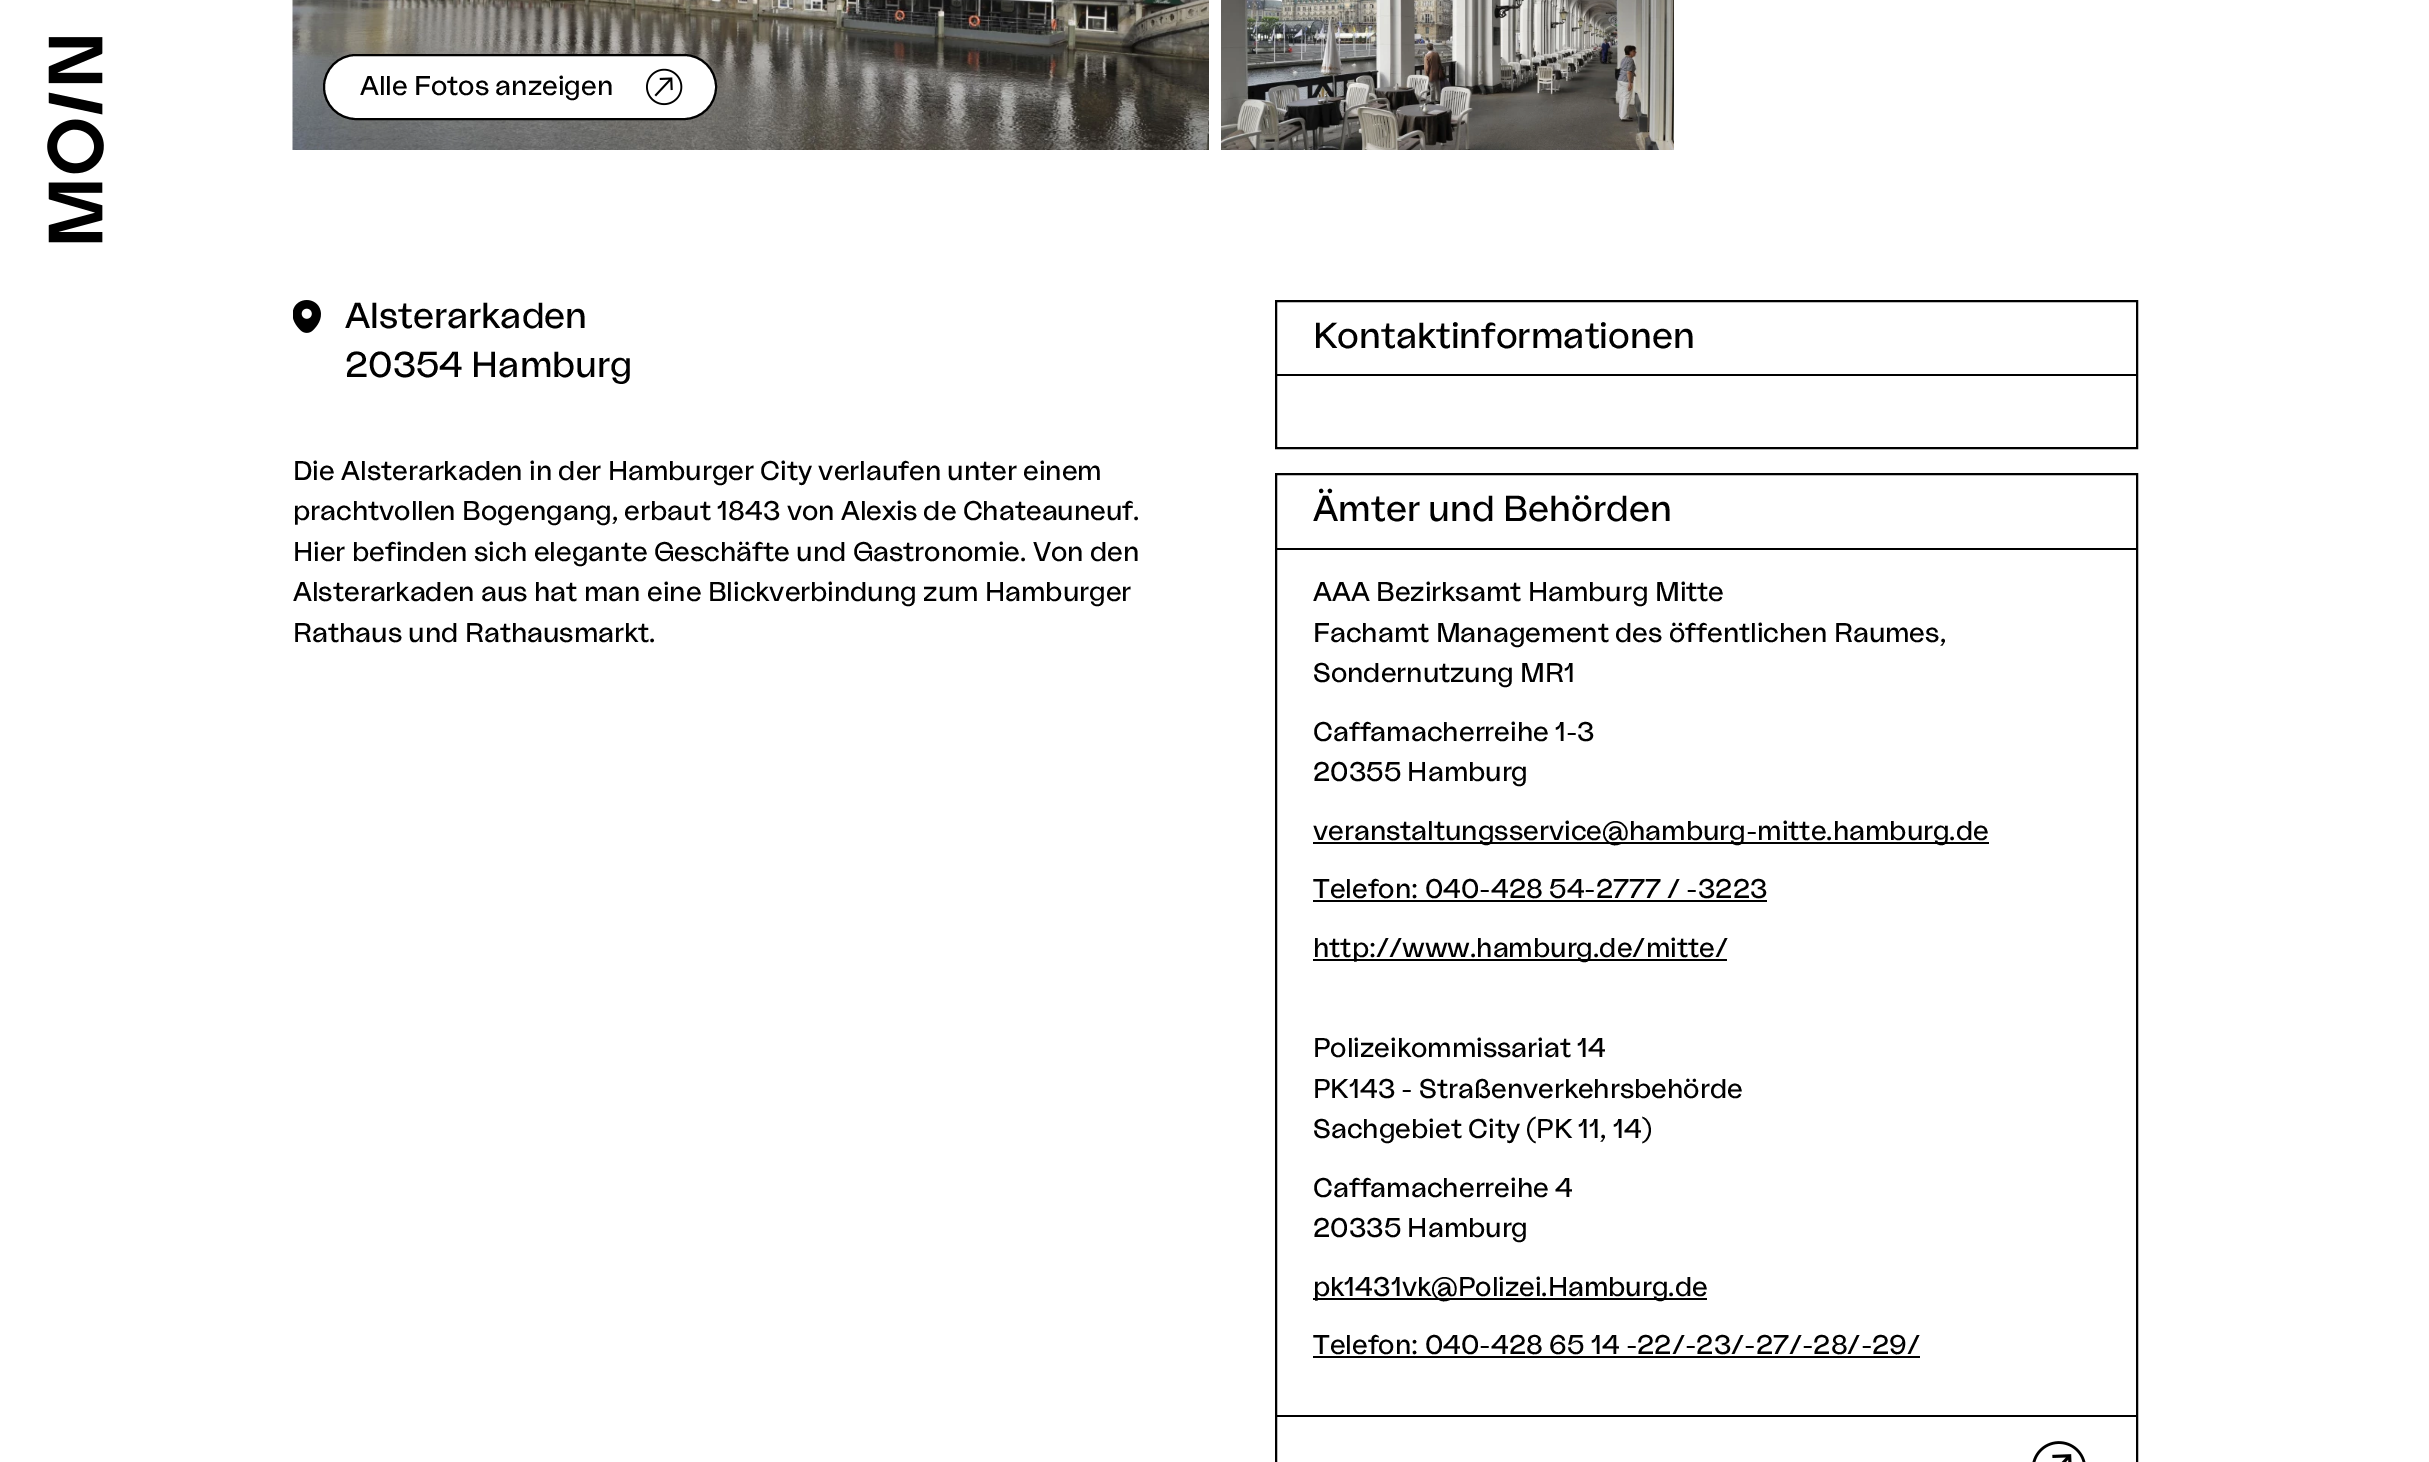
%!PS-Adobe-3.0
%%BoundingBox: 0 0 2429 1462
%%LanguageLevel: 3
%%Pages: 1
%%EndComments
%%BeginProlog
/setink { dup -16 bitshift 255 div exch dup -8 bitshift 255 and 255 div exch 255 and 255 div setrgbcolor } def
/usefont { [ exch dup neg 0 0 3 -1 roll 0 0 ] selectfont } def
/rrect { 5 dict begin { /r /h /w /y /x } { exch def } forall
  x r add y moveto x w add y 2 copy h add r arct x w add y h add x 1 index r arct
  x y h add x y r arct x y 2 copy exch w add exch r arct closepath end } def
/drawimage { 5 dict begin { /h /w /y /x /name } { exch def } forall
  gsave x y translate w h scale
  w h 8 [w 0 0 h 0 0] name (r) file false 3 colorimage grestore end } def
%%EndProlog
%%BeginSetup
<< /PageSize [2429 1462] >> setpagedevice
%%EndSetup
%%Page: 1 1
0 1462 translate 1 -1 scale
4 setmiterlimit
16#FFFFFF setink
0 0 2429 1462 rectfill
(img1.raw) 47 37 57 206 drawimage
(img2.raw) 292 0 917 150 drawimage
324 55 392 64 32 rrect gsave fill grestore
16#000000 setink
2 setlinewidth
stroke
/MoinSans-Regular 27 usefont
360 95 moveto (Alle Fotos anzeigen) show
(img3.raw) 646 68 37 38 drawimage
(img4.raw) 1221 0 453 150 drawimage
(img5.raw) 293 300 28 33 drawimage
/MoinSans-Regular 36 usefont
345 328 moveto (Alsterarkaden) show
345 377 moveto (20354 Hamburg) show
/MoinSans-Regular 27 usefont
[
    [(Die Alsterarkaden in der Hamburger City verlaufen unter einem) 293 480]
    [(prachtvollen Bogengang, erbaut 1843 von Alexis de Chateauneuf.) 293 520]
    [(Hier befinden sich elegante Geschäfte und Gastronomie. Von den) 293 561]
    [(Alsterarkaden aus hat man eine Blickverbindung zum Hamburger) 293 601]
    [(Rathaus und Rathausmarkt.) 293 642]
] { aload pop moveto show } forall
1276 301 861 147 rectstroke
1277 374 859 2 rectfill
/MoinSans-Regular 36 usefont
1313 348 moveto (Kontaktinformationen) show
1276 474 861 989 rectstroke
1277 548 859 2 rectfill
1313 521 moveto (Ämter und Behörden) show
/MoinSans-Regular 27 usefont
[
    [(AAA Bezirksamt Hamburg Mitte) 1313 601]
    [(Fachamt Management des öffentlichen Raumes,) 1313 642]
    [(Sondernutzung MR1) 1313 682]
    [(Caffamacherreihe 1-3) 1313 741]
    [(20355 Hamburg) 1313 781]
] { aload pop moveto show } forall
1313 842 676 2 rectfill
1313 840 moveto (veranstaltungsservice@hamburg-mitte.hamburg.de) show
1313 898 moveto (Telefon: 040-428 54-2777 / -3223) show
1313 900 454 2 rectfill
1313 959 414 2 rectfill
[
    [(http://www.hamburg.de/mitte/) 1313 957]
    [(Polizeikommissariat 14) 1313 1057]
    [(PK143 - Straßenverkehrsbehörde) 1313 1098]
    [(Sachgebiet City \(PK 11, 14\)) 1313 1138]
    [(Caffamacherreihe 4) 1313 1197]
    [(20335 Hamburg) 1313 1237]
] { aload pop moveto show } forall
1313 1298 394 2 rectfill
1313 1296 moveto (pk1431vk@Polizei.Hamburg.de) show
1313 1354 moveto (Telefon: 040-428 65 14 -22/-23/-27/-28/-29/) show
1313 1356 607 2 rectfill
1277 1415 859 2 rectfill
(img6.raw) 2032 1441 54 21 drawimage
showpage
%%EOF
